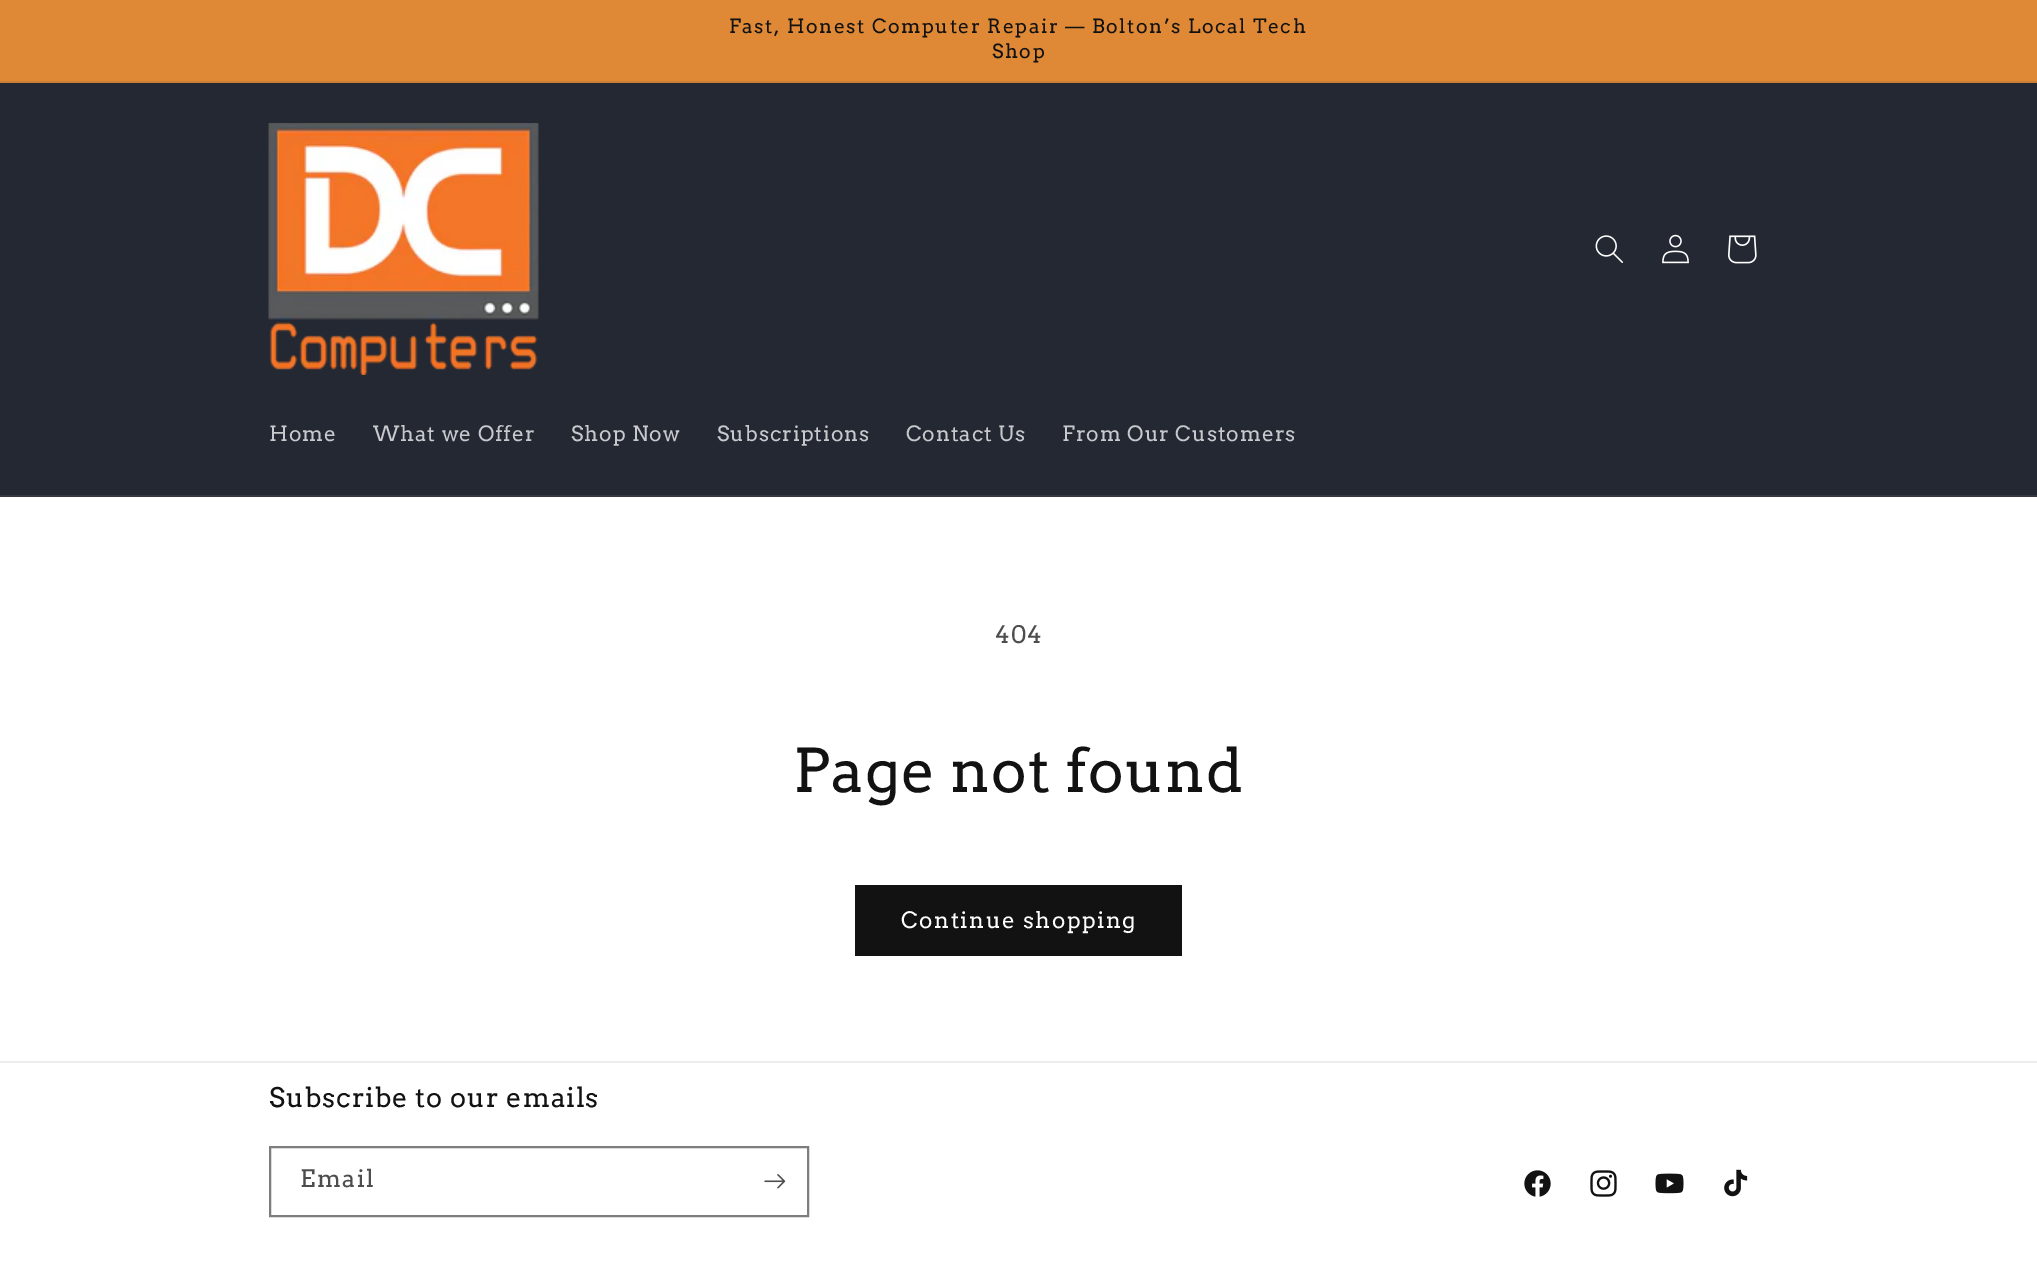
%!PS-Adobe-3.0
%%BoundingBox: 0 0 2037 1285
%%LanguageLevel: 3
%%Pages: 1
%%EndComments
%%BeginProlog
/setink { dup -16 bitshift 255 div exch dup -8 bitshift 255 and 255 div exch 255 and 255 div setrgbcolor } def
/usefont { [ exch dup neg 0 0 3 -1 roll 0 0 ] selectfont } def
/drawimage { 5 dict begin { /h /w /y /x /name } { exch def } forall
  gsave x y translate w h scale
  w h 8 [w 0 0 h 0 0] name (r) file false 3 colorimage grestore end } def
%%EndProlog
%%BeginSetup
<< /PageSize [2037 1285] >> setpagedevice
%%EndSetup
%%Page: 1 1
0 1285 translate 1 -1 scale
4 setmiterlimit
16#FFFFFF setink
0 0 2037 1285 rectfill
16#DF8936 setink
0 0 2037 81 rectfill
16#CF7F33 setink
0 81 2037 2 rectfill
/Arvo-Regular 19.5 usefont
16#121212 setink
729 33 moveto 1.5 0 (Fast, Honest Computer Repair — Bolton’s Local Tech) ashow
992 58 moveto 1.5 0 (Shop) ashow
16#242833 setink
0 83 2037 412 rectfill
16#363943 setink
0 495 2037 2 rectfill
(img1.raw) 268 123 271 252 drawimage
(img2.raw) 1595 235 28 28 drawimage
(img3.raw) 1662 234 27 30 drawimage
(img4.raw) 1728 235 29 29 drawimage
/Arvo-Regular 21 usefont
16#C8C9CC setink
269 441 moveto 0.9 0 (Home) ashow
373 441 moveto 0.9 0 (What we Offer) ashow
571 441 moveto 0.9 0 (Shop Now) ashow
717 441 moveto 0.9 0 (Subscriptions) ashow
906 441 moveto 0.9 0 (Contact Us) ashow
1062 441 moveto 0.9 0 (From Our Customers) ashow
/Arvo-Regular 24 usefont
16#4D4D4D setink
995 643 moveto 0.9 0 (404) ashow
/Arvo-Regular 60 usefont
16#121212 setink
793 792 moveto 0.9 0 (Page not found) ashow
855 885 327 71 rectfill
/Arvo-Regular 22.5 usefont
16#FFFFFF setink
901 928 moveto 1.5 0 (Continue shopping) ashow
16#ECECEC setink
0 1061 2037 2 rectfill
/Arvo-Regular 27 usefont
16#121212 setink
269 1107 moveto 0.9 0 (Subscribe to our emails) ashow
16#7D7D7D setink
2 setlinewidth
270 1147 538 69 rectstroke
/Arvo-Regular 24 usefont
16#4D4D4D setink
300 1187 moveto 1.5 0 (Email) ashow
(img5.raw) 764 1174 22 15 drawimage
(img6.raw) 1524 1170 27 27 drawimage
(img7.raw) 1590 1170 27 27 drawimage
(img8.raw) 1655 1173 29 21 drawimage
(img9.raw) 1724 1169 24 28 drawimage
showpage
%%EOF
